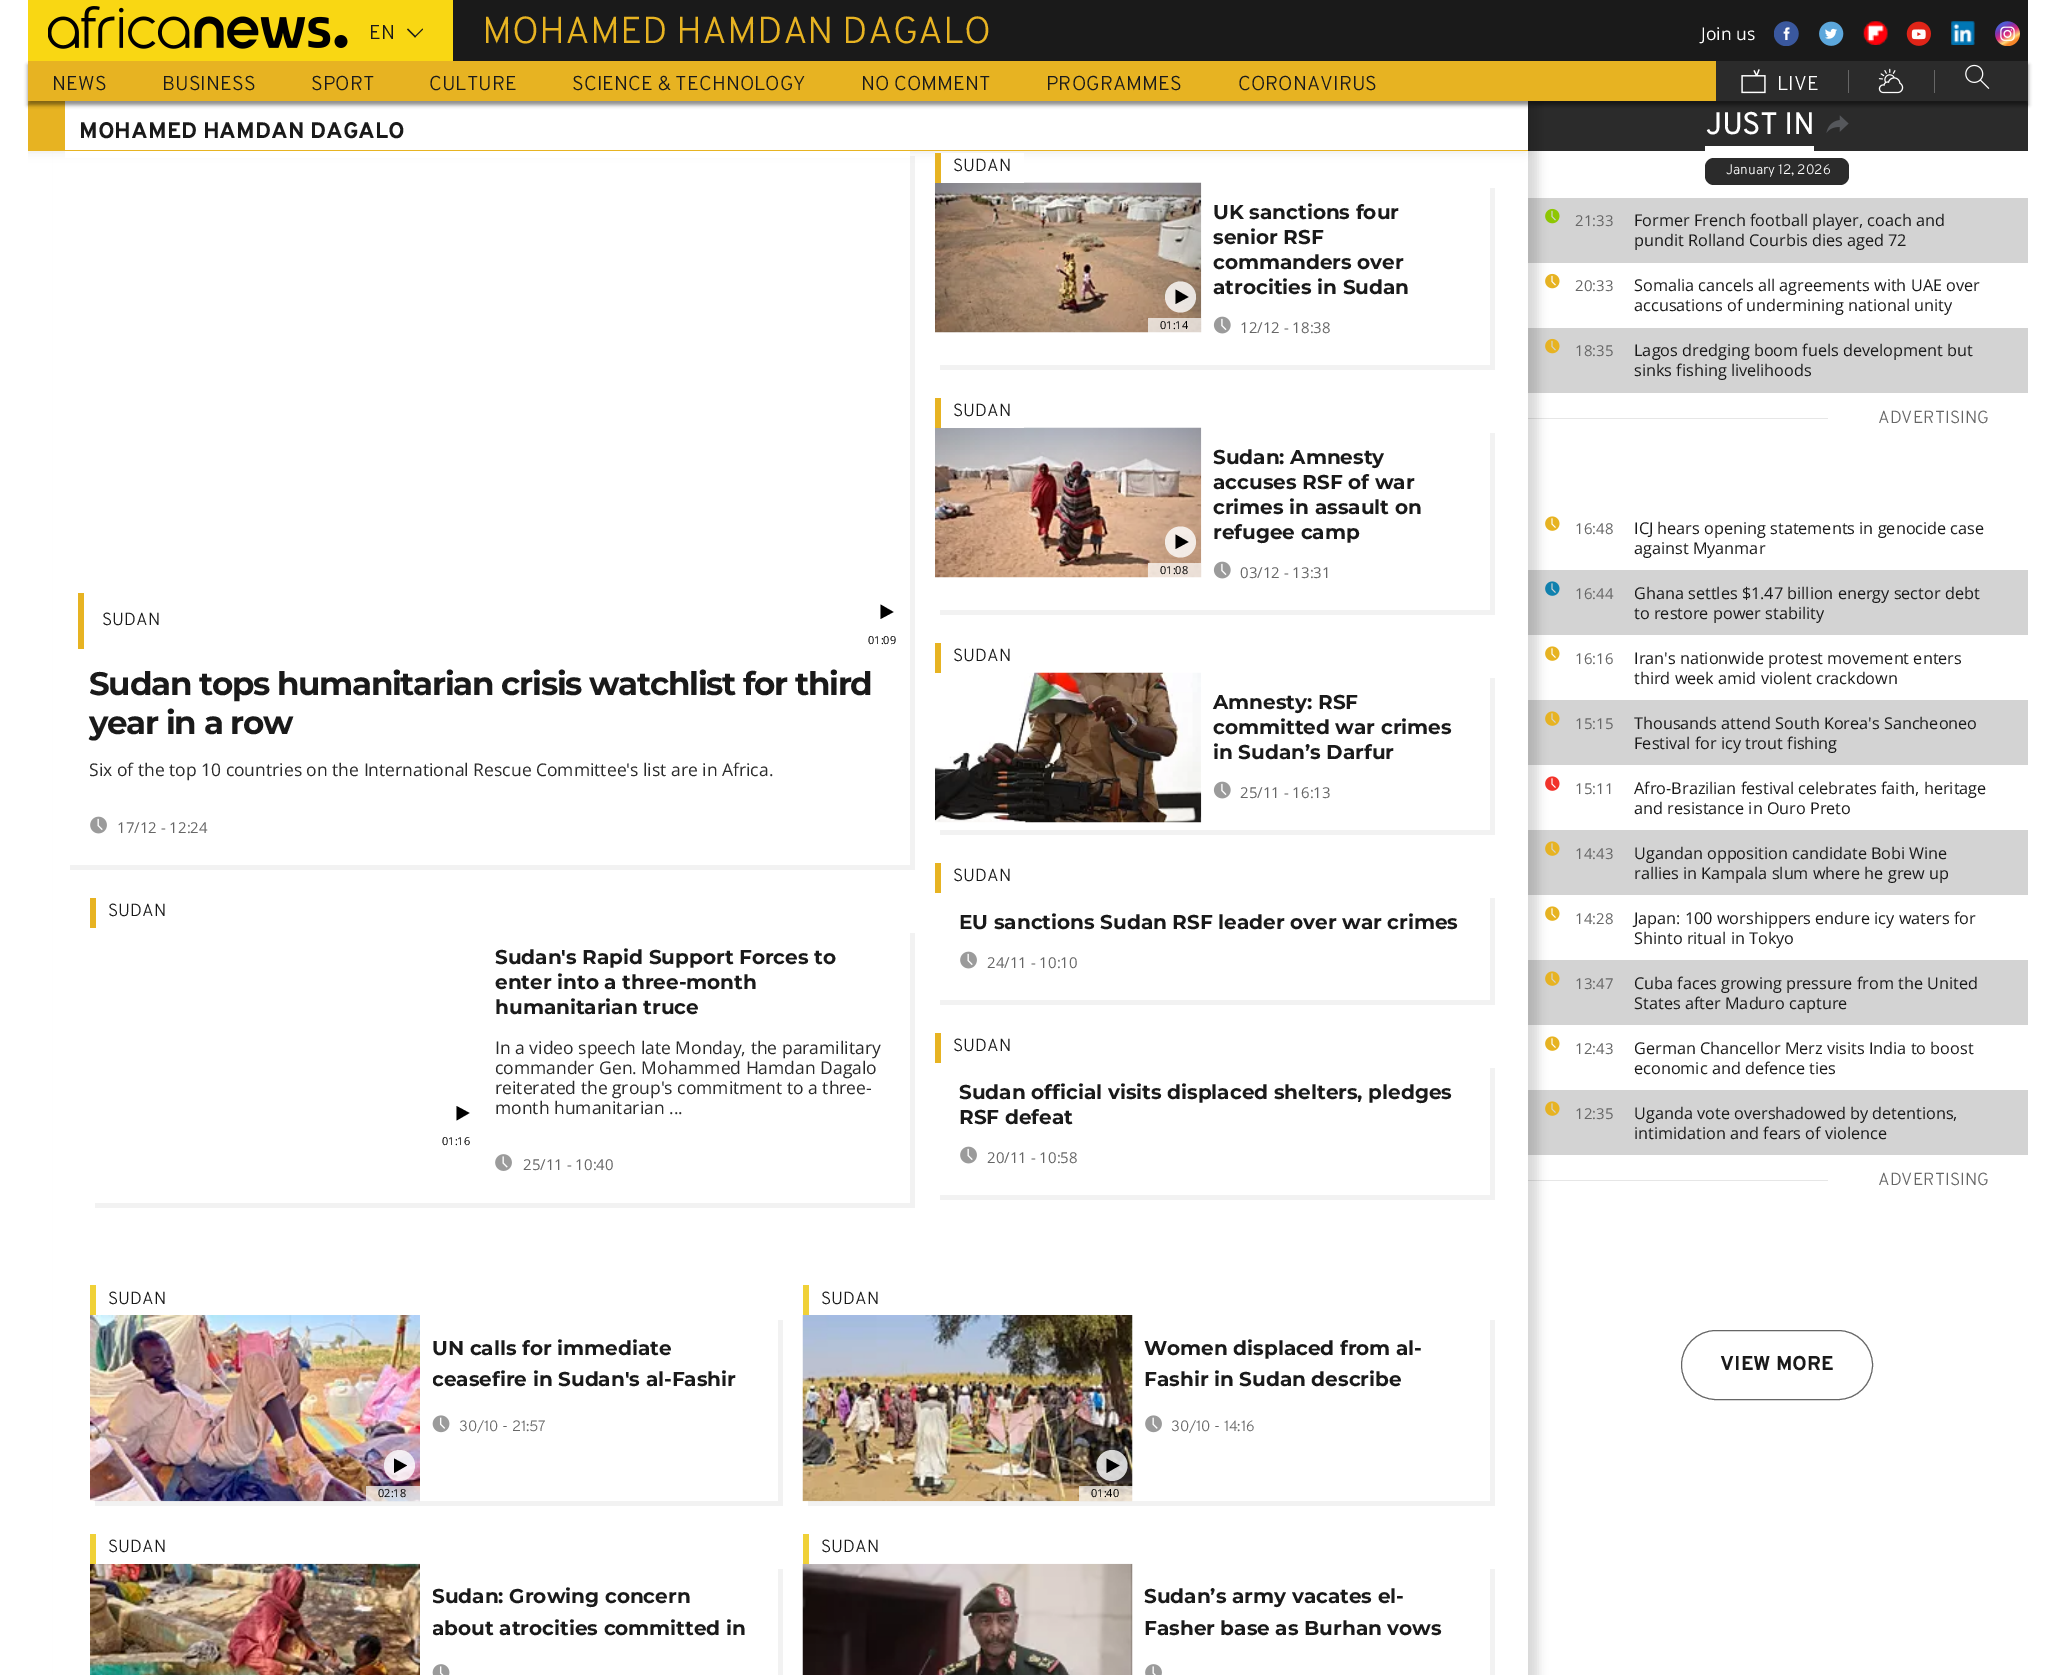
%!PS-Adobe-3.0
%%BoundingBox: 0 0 2053 1675
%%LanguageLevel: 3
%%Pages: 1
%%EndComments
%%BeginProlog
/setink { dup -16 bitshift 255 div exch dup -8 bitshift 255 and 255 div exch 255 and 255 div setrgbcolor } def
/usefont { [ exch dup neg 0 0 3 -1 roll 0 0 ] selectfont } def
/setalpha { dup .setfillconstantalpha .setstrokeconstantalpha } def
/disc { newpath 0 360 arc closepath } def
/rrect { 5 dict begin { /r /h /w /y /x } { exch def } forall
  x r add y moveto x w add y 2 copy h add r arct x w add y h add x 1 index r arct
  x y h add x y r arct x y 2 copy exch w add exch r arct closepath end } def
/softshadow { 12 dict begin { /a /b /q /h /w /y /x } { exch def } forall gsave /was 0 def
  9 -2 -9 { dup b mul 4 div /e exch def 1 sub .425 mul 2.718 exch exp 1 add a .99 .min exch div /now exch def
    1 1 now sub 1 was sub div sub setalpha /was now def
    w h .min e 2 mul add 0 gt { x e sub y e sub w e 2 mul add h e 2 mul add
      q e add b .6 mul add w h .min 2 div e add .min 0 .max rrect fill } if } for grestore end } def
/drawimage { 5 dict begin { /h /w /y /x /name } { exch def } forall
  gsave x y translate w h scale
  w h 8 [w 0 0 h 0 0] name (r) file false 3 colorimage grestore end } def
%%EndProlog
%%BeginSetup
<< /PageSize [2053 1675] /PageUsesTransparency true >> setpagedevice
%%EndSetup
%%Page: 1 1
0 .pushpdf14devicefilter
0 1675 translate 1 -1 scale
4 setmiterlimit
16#FFFFFF setink
0 0 2053 1675 rectfill
[
    [453 0 1575 61 16#1A1A1A]
    [1528 101 500 50 16#2B2B2B]
    [1528 198 500 65 16#D3D3D3]
] { aload pop setink rectfill } forall
(img26.raw) 1545 208 15 16 drawimage
(img27.raw) 1545 273 15 16 drawimage
1528 328 500 65 rectfill
(img28.raw) 1545 338 15 16 drawimage
16#E6E6E6 setink
1528 418 300 1 rectfill
(img29.raw) 1545 516 15 15 drawimage
16#D3D3D3 setink
1528 570 500 65 rectfill
(img30.raw) 1545 581 15 15 drawimage
(img29.raw) 1545 646 15 15 drawimage
1528 700 500 65 rectfill
(img31.raw) 1545 711 15 15 drawimage
(img32.raw) 1545 776 15 15 drawimage
1528 830 500 65 rectfill
(img31.raw) 1545 841 15 15 drawimage
(img29.raw) 1545 906 15 15 drawimage
1528 960 500 65 rectfill
(img31.raw) 1545 971 15 15 drawimage
(img29.raw) 1545 1036 15 15 drawimage
1528 1090 500 65 rectfill
(img31.raw) 1545 1101 15 15 drawimage
16#E6E6E6 setink
1528 1180 300 1 rectfill
gsave
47 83 moveto 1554 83 lineto 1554 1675 lineto 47 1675 lineto closepath 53 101 moveto 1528 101 lineto 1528 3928 lineto 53 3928 lineto closepath eoclip newpath
16#000000 setink
63 99 1475 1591 0 5 0.15 softshadow
grestore
16#FFFFFF setink
1527 151 1 1139 rectfill
gsave
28 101 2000 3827 rectclip
16#000000 setink
25 99 1500 50 0 6 0.15 softshadow
grestore
65 101 1463 49 rectfill
16#E7B322 setink
28 101 37 49 rectfill
16#000000 setink
28 65 2000 40 0 2 0.45 softshadow
16#F9D713 setink
28 0 425 61 rectfill
(img1.raw) 48 6 300 43 drawimage
/Overpass-Light 20 usefont
16#1A1A1A setink
369 39 moveto (EN) show
414.5 36.5 moveto 422.5 28.5 lineto 423 29.5 lineto 415 37.5 lineto closepath fill
407 29.5 moveto 408 28.5 lineto 416 36.5 lineto 415 37.5 lineto closepath fill
/Overpass-Light 37.5 usefont
16#E7B322 setink
482 43 moveto (MOHAMED HAMDAN DAGALO) show
/OpenSans-Regular 17.5 usefont
16#FFFFFF setink
1701 40 moveto (Join us) show
(img2.raw) 1774 21 25 25 drawimage
(img3.raw) 1819 21 25 25 drawimage
(img4.raw) 1863 21 25 24 drawimage
(img5.raw) 1906 21 25 25 drawimage
(img6.raw) 1951 21 24 24 drawimage
(img7.raw) 1995 21 25 25 drawimage
16#E7B322 setink
28 61 1688 40 rectfill
/Overpass-Light 20 usefont
16#1A1A1A setink
[
    [(NEWS) 52 90]
    [(BUSINESS) 162 90]
    [(SPORT) 311 90]
    [(CULTURE) 429 90]
    [(SCIENCE & TECHNOLOGY) 572 90]
    [(NO COMMENT) 861 90]
    [(PROGRAMMES) 1046 90]
    [(CORONAVIRUS) 1238 90]
] { aload pop moveto show } forall
16#2B2B2B setink
1716 61 312 40 rectfill
(img8.raw) 1741 69 25 25 drawimage
16#FFFFFF setink
1777 90 moveto (LIVE) show
16#666666 setink
1848 70 1 23 rectfill
(img9.raw) 1878 68 26 26 drawimage
1934 70 1 23 rectfill
(img10.raw) 1965 64 25 25 drawimage
16#E7B322 setink
28 150 1500 1 rectfill
/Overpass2-Bold 22.5 usefont
16#1A1A1A setink
79 138 moveto (MOHAMED HAMDAN DAGALO) show
0.05 setalpha
16#000000 setink
70 865 moveto 70 870 lineto 915 870 lineto 915 156 lineto 910 156 lineto 910 865 lineto closepath fill
1 setalpha
16#FFFFFF setink
65 151 845 7 rectfill
16#E7B322 setink
78 593 6 56 rectfill
/Overpass-Light 17.5 usefont
16#1A1A1A setink
102 625 moveto (SUDAN) show
/Montserrat-Thin 32.5 usefont
89 695 moveto -1.25 0 (Sudan tops humanitarian crisis watchlist for third) ashow
89 734 moveto -1.25 0 (year in a row) ashow
/OpenSans-Regular 17.5 usefont
16#2B2B2B setink
89 776 moveto (Six of the top 10 countries on the International Rescue Committee's list are in Africa.) show
(img11.raw) 90 816 17 18 drawimage
/OpenSans-Regular 15 usefont
16#666666 setink
117 833 moveto (17/12 - 12:24) show
16#000000 setink
893.5 612 moveto 880.5 619 lineto 880.5 604.5 lineto closepath fill
/OpenSans-Regular 11 usefont
868 644 moveto (01:09) show
16#F2F2F2 setink
95 1202 moveto 95 1208 lineto 915 1208 lineto 915 933 lineto 910 933 lineto 910 1202 lineto closepath fill
16#FFFFFF setink
95 1202 815 1 rectfill
16#E7B322 setink
90 898 6 30 rectfill
/Overpass-Light 17.5 usefont
16#1A1A1A setink
108 916 moveto (SUDAN) show
/Montserrat-Thin 20 usefont
[
    [(Sudan's Rapid Support Forces to) 495 964]
    [(enter into a three-month) 495 989]
    [(humanitarian truce) 495 1014]
] { aload pop moveto show } forall
/OpenSans-Regular 17.5 usefont
16#2B2B2B setink
[
    [(In a video speech late Monday, the paramilitary) 495 1054]
    [(commander Gen. Mohammed Hamdan Dagalo) 495 1074]
    [(reiterated the group's commitment to a three-) 495 1094]
    [(month humanitarian ...) 495 1114]
] { aload pop moveto show } forall
(img12.raw) 495 1154 17 17 drawimage
/OpenSans-Regular 15 usefont
16#666666 setink
523 1170 moveto (25/11 - 10:40) show
16#000000 setink
469.5 1113 moveto 456.5 1120.5 lineto 456.5 1106 lineto closepath fill
/OpenSans-Regular 11 usefont
442 1145 moveto (01:16) show
16#F2F2F2 setink
940 365 moveto 940 370 lineto 1495 370 lineto 1495 188 lineto 1490 188 lineto 1490 365 lineto closepath fill
(img14.raw) 935 182 267 151 drawimage
16#FFFFFF setink
941 153 83 30 rectfill
16#E7B322 setink
935 153 6 30 rectfill
/Overpass-Light 17.5 usefont
16#1A1A1A setink
953 171 moveto (SUDAN) show
/Montserrat-Thin 20 usefont
[
    [(UK sanctions four) 1213 219]
    [(senior RSF) 1213 244]
    [(commanders over) 1213 269]
    [(atrocities in Sudan) 1213 294]
] { aload pop moveto show } forall
(img13.raw) 1213 316 18 18 drawimage
/OpenSans-Regular 15 usefont
16#666666 setink
1240 333 moveto (12/12 - 18:38) show
0.8 setalpha
16#FFFFFF setink
1180.5 297 15.5 disc fill
1 setalpha
16#000000 setink
1188.5 297 moveto 1175.5 304 lineto 1175.5 289.5 lineto closepath fill
0.7 setalpha
16#FFFFFF setink
1148 318 53 15 rectfill
/OpenSans-Regular 11 usefont
1 setalpha
16#000000 setink
1160 329 moveto (01:14) show
16#F2F2F2 setink
940 610 moveto 940 615 lineto 1495 615 lineto 1495 433 lineto 1490 433 lineto 1490 610 lineto closepath fill
(img15.raw) 935 427 267 151 drawimage
16#FFFFFF setink
941 427 83 1 rectfill
16#E7B322 setink
935 398 6 30 rectfill
/Overpass-Light 17.5 usefont
16#1A1A1A setink
953 416 moveto (SUDAN) show
/Montserrat-Thin 20 usefont
[
    [(Sudan: Amnesty) 1213 464]
    [(accuses RSF of war) 1213 489]
    [(crimes in assault on) 1213 514]
    [(refugee camp) 1213 539]
] { aload pop moveto show } forall
(img13.raw) 1213 561 18 18 drawimage
/OpenSans-Regular 15 usefont
16#666666 setink
1240 578 moveto (03/12 - 13:31) show
0.8 setalpha
16#FFFFFF setink
1180.5 542 15.5 disc fill
1 setalpha
16#000000 setink
1188.5 542 moveto 1175.5 549 lineto 1175.5 534.5 lineto closepath fill
0.7 setalpha
16#FFFFFF setink
1148 563 53 15 rectfill
/OpenSans-Regular 11 usefont
1 setalpha
16#000000 setink
1160 574 moveto (01:08) show
16#F2F2F2 setink
940 830 moveto 940 835 lineto 1495 835 lineto 1495 678 lineto 1490 678 lineto 1490 830 lineto closepath fill
(img16.raw) 935 672 267 151 drawimage
16#E7B322 setink
935 643 6 30 rectfill
/Overpass-Light 17.5 usefont
16#1A1A1A setink
953 661 moveto (SUDAN) show
/Montserrat-Thin 20 usefont
[
    [(Amnesty: RSF) 1213 709]
    [(committed war crimes) 1213 734]
    [(in Sudan’s Darfur) 1213 759]
] { aload pop moveto show } forall
(img13.raw) 1213 781 18 18 drawimage
/OpenSans-Regular 15 usefont
16#666666 setink
1240 798 moveto (25/11 - 16:13) show
16#F2F2F2 setink
940 1000 moveto 940 1005 lineto 1495 1005 lineto 1495 898 lineto 1490 898 lineto 1490 1000 lineto closepath fill
16#E7B322 setink
935 863 6 30 rectfill
/Overpass-Light 17.5 usefont
16#1A1A1A setink
953 881 moveto (SUDAN) show
/Montserrat-Thin 20 usefont
959 929 moveto (EU sanctions Sudan RSF leader over war crimes) show
(img11.raw) 960 951 17 18 drawimage
/OpenSans-Regular 15 usefont
16#666666 setink
987 968 moveto (24/11 - 10:10) show
16#F2F2F2 setink
940 1195 moveto 940 1200 lineto 1495 1200 lineto 1495 1068 lineto 1490 1068 lineto 1490 1195 lineto closepath fill
16#E7B322 setink
935 1033 6 30 rectfill
/Overpass-Light 17.5 usefont
16#1A1A1A setink
953 1051 moveto (SUDAN) show
/Montserrat-Thin 20 usefont
959 1099 moveto (Sudan official visits displaced shelters, pledges) show
959 1124 moveto (RSF defeat) show
(img11.raw) 960 1146 17 18 drawimage
/OpenSans-Regular 15 usefont
16#666666 setink
987 1163 moveto (20/11 - 10:58) show
16#F2F2F2 setink
95 1501 moveto 95 1506 lineto 783 1506 lineto 783 1320 lineto 778 1320 lineto 778 1501 lineto closepath fill
16#F0D138 setink
90 1285 6 30 rectfill
/Overpass-Light 17.5 usefont
16#1A1A1A setink
108 1304 moveto (SUDAN) show
/Montserrat-Thin 20 usefont
432 1355 moveto (UN calls for immediate) show
gsave
433 1333 320 67 rectclip
432 1386 moveto (ceasefire in Sudan's al-Fashir) show
grestore
(img17.raw) 432 1415 18 18 drawimage
/Overpass-Light 15 usefont
16#666666 setink
459 1431 moveto (30/10 - 21:57) show
(img18.raw) 90 1315 330 187 drawimage
0.8 setalpha
16#FFFFFF setink
399.5 1465.5 15.5 disc fill
1 setalpha
16#000000 setink
407 1465.5 moveto 394 1473 lineto 394 1458.5 lineto closepath fill
0.7 setalpha
16#FFFFFF setink
366 1486 54 15 rectfill
/OpenSans-Regular 11 usefont
1 setalpha
16#000000 setink
378 1497 moveto (02:18) show
16#F2F2F2 setink
808 1501 moveto 808 1506 lineto 1495 1506 lineto 1495 1320 lineto 1490 1320 lineto 1490 1501 lineto closepath fill
16#F0D138 setink
803 1285 6 30 rectfill
/Overpass-Light 17.5 usefont
16#1A1A1A setink
821 1304 moveto (SUDAN) show
/Montserrat-Thin 20 usefont
1144 1355 moveto (Women displaced from al-) show
1144 1386 moveto (Fashir in Sudan describe) show
(img19.raw) 1145 1415 17 18 drawimage
/Overpass-Light 15 usefont
16#666666 setink
1171 1431 moveto (30/10 - 14:16) show
(img20.raw) 802 1315 331 187 drawimage
0.8 setalpha
16#FFFFFF setink
1112 1465.5 15.5 disc fill
1 setalpha
16#000000 setink
1119.5 1465.5 moveto 1106.5 1473 lineto 1106.5 1458.5 lineto closepath fill
0.7 setalpha
16#FFFFFF setink
1079 1486 54 15 rectfill
/OpenSans-Regular 11 usefont
1 setalpha
16#000000 setink
1091 1497 moveto (01:40) show
16#F2F2F2 setink
95 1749 moveto 95 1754 lineto 783 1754 lineto 783 1569 lineto 778 1569 lineto 778 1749 lineto closepath fill
(img22.raw) 90 1563 330 112 drawimage
16#FFFFFF setink
96 1563 83 1 rectfill
16#F0D138 setink
90 1534 6 30 rectfill
/Overpass-Light 17.5 usefont
16#1A1A1A setink
108 1552 moveto (SUDAN) show
gsave
433 1581 320 68 rectclip
/Montserrat-Thin 20 usefont
432 1603 moveto (Sudan: Growing concern) show
432 1635 moveto (about atrocities committed in) show
grestore
(img21.raw) 432 1664 18 11 drawimage
16#F2F2F2 setink
808 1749 moveto 808 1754 lineto 1495 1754 lineto 1495 1569 lineto 1490 1569 lineto 1490 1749 lineto closepath fill
(img24.raw) 802 1563 331 112 drawimage
16#FFFFFF setink
809 1563 82 1 rectfill
16#F0D138 setink
803 1534 6 30 rectfill
16#1A1A1A setink
821 1552 moveto (SUDAN) show
/Montserrat-Thin 20 usefont
1144 1603 moveto (Sudan’s army vacates el-) show
1144 1635 moveto (Fasher base as Burhan vows) show
(img23.raw) 1145 1664 17 11 drawimage
/Overpass-Bold 30 usefont
16#FFFFFF setink
1706 134 moveto (JUST IN) show
1705 146 109 5 rectfill
(img25.raw) 1826 115 23 18 drawimage
16#2B2B2B setink
1705 158 144 27 9 rrect fill
/Overpass-Light 13.75 usefont
16#FFFFFF setink
1726 174 moveto (January 12, 2026) show
/OpenSans-Regular 15 usefont
16#666666 setink
1575 226 moveto (21:33) show
/OpenSans-Regular 16.25 usefont
16#1A1A1A setink
1634 226 moveto (Former French football player, coach and) show
1634 246 moveto (pundit Rolland Courbis dies aged 72) show
/OpenSans-Regular 15 usefont
16#666666 setink
1575 291 moveto (20:33) show
/OpenSans-Regular 16.25 usefont
16#1A1A1A setink
1634 291 moveto (Somalia cancels all agreements with UAE over) show
1634 311 moveto (accusations of undermining national unity) show
/OpenSans-Regular 15 usefont
16#666666 setink
1575 356 moveto (18:35) show
/OpenSans-Regular 16.25 usefont
16#1A1A1A setink
1634 356 moveto (Lagos dredging boom fuels development but) show
1634 376 moveto (sinks fishing livelihoods) show
/Overpass-Light 17.5 usefont
16#666666 setink
1878 423 moveto (ADVERTISING) show
/OpenSans-Regular 15 usefont
1575 534 moveto (16:48) show
/OpenSans-Regular 16.25 usefont
16#1A1A1A setink
1634 534 moveto (ICJ hears opening statements in genocide case) show
1634 554 moveto (against Myanmar) show
/OpenSans-Regular 15 usefont
16#666666 setink
1575 599 moveto (16:44) show
/OpenSans-Regular 16.25 usefont
16#1A1A1A setink
1634 599 moveto (Ghana settles $1.47 billion energy sector debt) show
1634 619 moveto (to restore power stability) show
/OpenSans-Regular 15 usefont
16#666666 setink
1575 664 moveto (16:16) show
/OpenSans-Regular 16.25 usefont
16#1A1A1A setink
1634 664 moveto (Iran's nationwide protest movement enters) show
1634 684 moveto (third week amid violent crackdown) show
/OpenSans-Regular 15 usefont
16#666666 setink
1575 729 moveto (15:15) show
/OpenSans-Regular 16.25 usefont
16#1A1A1A setink
1634 729 moveto (Thousands attend South Korea's Sancheoneo) show
1634 749 moveto (Festival for icy trout fishing) show
/OpenSans-Regular 15 usefont
16#666666 setink
1575 794 moveto (15:11) show
/OpenSans-Regular 16.25 usefont
16#1A1A1A setink
1634 794 moveto (Afro-Brazilian festival celebrates faith, heritage) show
1634 814 moveto (and resistance in Ouro Preto) show
/OpenSans-Regular 15 usefont
16#666666 setink
1575 859 moveto (14:43) show
/OpenSans-Regular 16.25 usefont
16#1A1A1A setink
1634 859 moveto (Ugandan opposition candidate Bobi Wine) show
1634 879 moveto (rallies in Kampala slum where he grew up) show
/OpenSans-Regular 15 usefont
16#666666 setink
1575 924 moveto (14:28) show
/OpenSans-Regular 16.25 usefont
16#1A1A1A setink
1634 924 moveto (Japan: 100 worshippers endure icy waters for) show
1634 944 moveto (Shinto ritual in Tokyo) show
/OpenSans-Regular 15 usefont
16#666666 setink
1575 989 moveto (13:47) show
/OpenSans-Regular 16.25 usefont
16#1A1A1A setink
1634 989 moveto (Cuba faces growing pressure from the United) show
1634 1009 moveto (States after Maduro capture) show
/OpenSans-Regular 15 usefont
16#666666 setink
1575 1054 moveto (12:43) show
/OpenSans-Regular 16.25 usefont
16#1A1A1A setink
1634 1054 moveto (German Chancellor Merz visits India to boost) show
1634 1074 moveto (economic and defence ties) show
/OpenSans-Regular 15 usefont
16#666666 setink
1575 1119 moveto (12:35) show
/OpenSans-Regular 16.25 usefont
16#1A1A1A setink
1634 1119 moveto (Uganda vote overshadowed by detentions,) show
1634 1139 moveto (intimidation and fears of violence) show
/Overpass-Light 17.5 usefont
16#666666 setink
1878 1185 moveto (ADVERTISING) show
1681.5 1330.5 191 69 34.5 rrect stroke
/Overpass2-Bold 20 usefont
16#1A1A1A setink
1720 1370 moveto (VIEW MORE) show
.poppdf14devicefilter showpage
%%EOF
